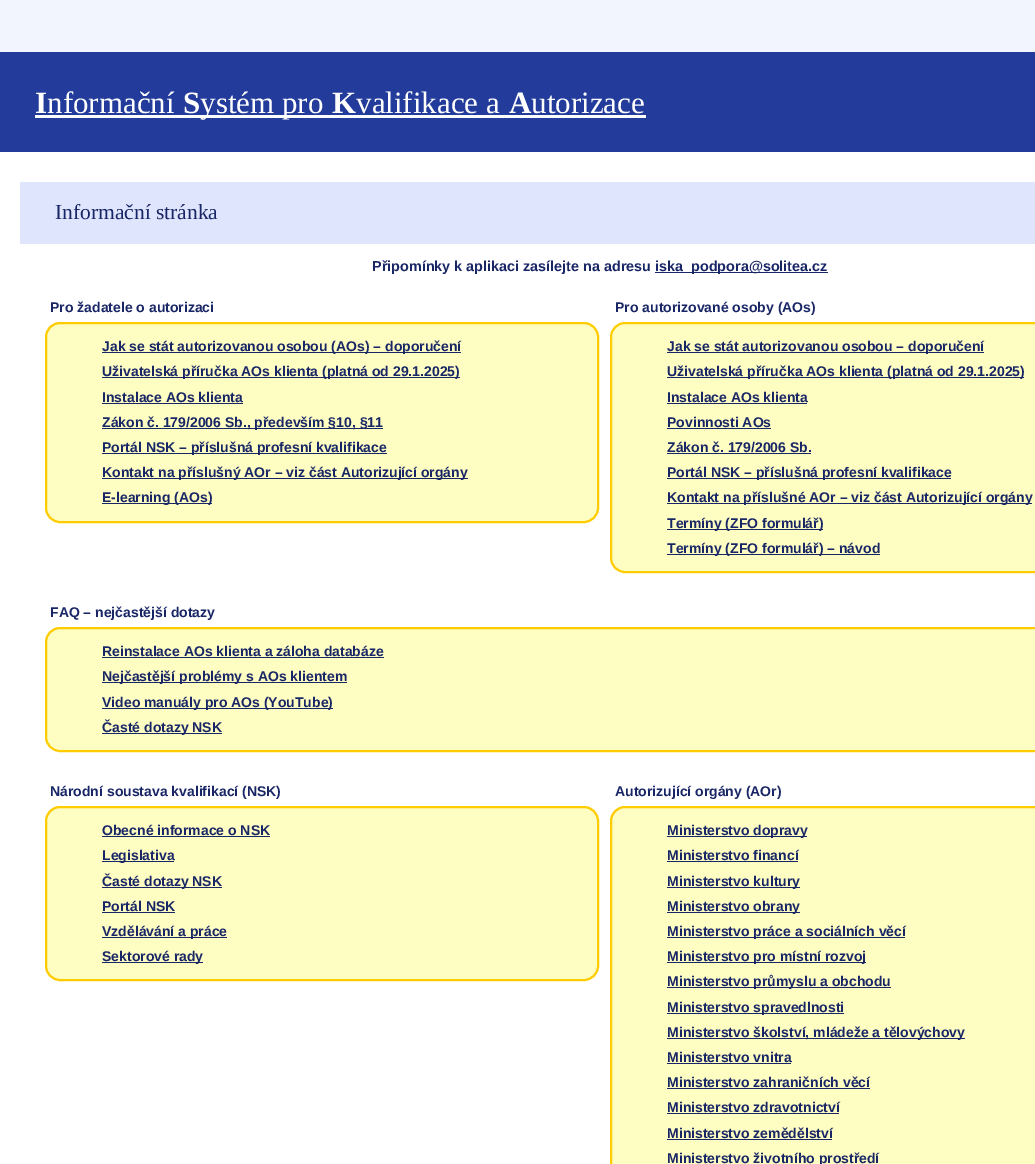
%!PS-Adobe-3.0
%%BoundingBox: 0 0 1035 1164
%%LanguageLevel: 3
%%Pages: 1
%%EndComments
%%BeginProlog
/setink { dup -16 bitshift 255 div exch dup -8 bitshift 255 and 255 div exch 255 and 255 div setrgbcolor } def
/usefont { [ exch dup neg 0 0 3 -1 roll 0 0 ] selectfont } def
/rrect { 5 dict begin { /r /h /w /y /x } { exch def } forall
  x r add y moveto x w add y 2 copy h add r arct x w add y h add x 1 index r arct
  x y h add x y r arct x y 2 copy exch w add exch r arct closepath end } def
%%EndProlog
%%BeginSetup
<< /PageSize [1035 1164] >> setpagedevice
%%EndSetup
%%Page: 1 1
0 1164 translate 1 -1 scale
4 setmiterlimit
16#F2F5FE setink
0 0 1035 1164 rectfill
16#233C9B setink
0 52 1035 100 rectfill
/LiberationSerif-Bold 31 usefont
16#FFFFFF setink
35 113 moveto (I) show
/LiberationSerif-Regular 31 usefont
47 113 moveto (nformační) show
/LiberationSerif-Bold 31 usefont
183 113 moveto (S) show
35 115 611 3 rectfill
/LiberationSerif-Regular 31 usefont
200 113 moveto (ystém pro) show
/LiberationSerif-Bold 31 usefont
332 113 moveto (K) show
/LiberationSerif-Regular 31 usefont
356 113 moveto (valifikace a) show
/LiberationSerif-Bold 31 usefont
509 113 moveto (A) show
/LiberationSerif-Regular 31 usefont
531 113 moveto (utorizace) show
0 152 1035 1012 rectfill
16#DEE5FD setink
20 182 1015 62 rectfill
/LiberationSerif-Regular 21.5 usefont
16#192666 setink
55 219 moveto (Informační stránka) show
/LiberationSans-Bold 14.4 usefont
372 271 moveto (Připomínky k aplikaci zasílejte na adresu) show
655 272 173 1 rectfill
655 271 moveto (iska_podpora@solitea.cz) show
/LiberationSans-Bold 14 usefont
50 312 moveto (Pro žadatele o autorizaci) show
16#FEFDC2 setink
46 323 552 199 14 rrect gsave fill grestore
16#FFCC00 setink
2 setlinewidth
stroke
16#192666 setink
102 352 359 1 rectfill
102 351 moveto (Jak se stát autorizovanou osobou \(AOs\) – doporučení) show
102 377 358 1 rectfill
102 376 moveto (Uživatelská příručka AOs klienta \(platná od 29.1.2025\)) show
102 402 moveto (Instalace AOs klienta) show
102 403 141 1 rectfill
102 428 281 1 rectfill
102 427 moveto (Zákon č. 179/2006 Sb., především §10, §11) show
102 453 285 1 rectfill
102 452 moveto (Portál NSK – příslušná profesní kvalifikace) show
102 478 366 1 rectfill
102 477 moveto (Kontakt na příslušný AOr – viz část Autorizující orgány) show
102 503 110 1 rectfill
102 502 moveto (E-learning \(AOs\)) show
615 312 moveto (Pro autorizované osoby \(AOs\)) show
16#FEFDC2 setink
611 323 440 249 14 rrect gsave fill grestore
16#FFCC00 setink
stroke
16#192666 setink
667 352 317 1 rectfill
667 351 moveto (Jak se stát autorizovanou osobou – doporučení) show
667 377 357 1 rectfill
667 376 moveto (Uživatelská příručka AOs klienta \(platná od 29.1.2025\)) show
667 402 moveto (Instalace AOs klienta) show
667 403 140 1 rectfill
667 427 moveto (Povinnosti AOs) show
667 428 104 1 rectfill
667 452 moveto (Zákon č. 179/2006 Sb.) show
667 453 144 1 rectfill
667 478 284 1 rectfill
667 477 moveto (Portál NSK – příslušná profesní kvalifikace) show
667 503 365 1 rectfill
667 502 moveto (Kontakt na příslušné AOr – viz část Autorizující orgány) show
667 529 156 1 rectfill
667 528 moveto (Termíny \(ZFO formulář\)) show
667 554 213 1 rectfill
667 553 moveto (Termíny \(ZFO formulář\) – návod) show
50 617 moveto (FAQ – nejčastější dotazy) show
16#FEFDC2 setink
46 628 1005 123 14 rrect gsave fill grestore
16#FFCC00 setink
stroke
16#192666 setink
102 656 moveto (Reinstalace AOs klienta a záloha databáze) show
102 657 282 1 rectfill
102 682 245 1 rectfill
102 681 moveto (Nejčastější problémy s AOs klientem) show
102 708 231 1 rectfill
102 707 moveto (Video manuály pro AOs \(YouTube\)) show
102 733 120 1 rectfill
102 732 moveto (Časté dotazy NSK) show
50 796 moveto (Národní soustava kvalifikací \(NSK\)) show
16#FEFDC2 setink
46 807 552 173 14 rrect gsave fill grestore
16#FFCC00 setink
stroke
16#192666 setink
102 835 moveto (Obecné informace o NSK) show
102 836 168 1 rectfill
102 861 72 1 rectfill
102 860 moveto (Legislativa) show
102 887 120 1 rectfill
102 886 moveto (Časté dotazy NSK) show
102 911 moveto (Portál NSK) show
102 912 73 1 rectfill
102 937 125 1 rectfill
102 936 moveto (Vzdělávání a práce) show
102 962 101 1 rectfill
102 961 moveto (Sektorové rady) show
615 796 moveto (Autorizující orgány \(AOr\)) show
16#FEFDC2 setink
611 807 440 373 14 rrect gsave fill grestore
16#FFCC00 setink
stroke
16#192666 setink
667 836 140 1 rectfill
667 835 moveto (Ministerstvo dopravy) show
667 860 moveto (Ministerstvo financí) show
667 861 131 1 rectfill
667 887 133 1 rectfill
667 886 moveto (Ministerstvo kultury) show
667 912 133 1 rectfill
667 911 moveto (Ministerstvo obrany) show
667 937 238 1 rectfill
667 936 moveto (Ministerstvo práce a sociálních věcí) show
667 962 199 1 rectfill
667 961 moveto (Ministerstvo pro místní rozvoj) show
667 987 224 1 rectfill
667 986 moveto (Ministerstvo průmyslu a obchodu) show
667 1013 177 1 rectfill
667 1012 moveto (Ministerstvo spravedlnosti) show
667 1038 298 1 rectfill
667 1037 moveto (Ministerstvo školství, mládeže a tělovýchovy) show
667 1062 moveto (Ministerstvo vnitra) show
667 1063 124 1 rectfill
667 1087 moveto (Ministerstvo zahraničních věcí) show
667 1088 203 1 rectfill
667 1112 moveto (Ministerstvo zdravotnictví) show
667 1113 172 1 rectfill
667 1138 moveto (Ministerstvo zemědělství) show
667 1139 165 1 rectfill
667 1163 moveto (Ministerstvo životního prostředí) show
showpage
%%EOF
